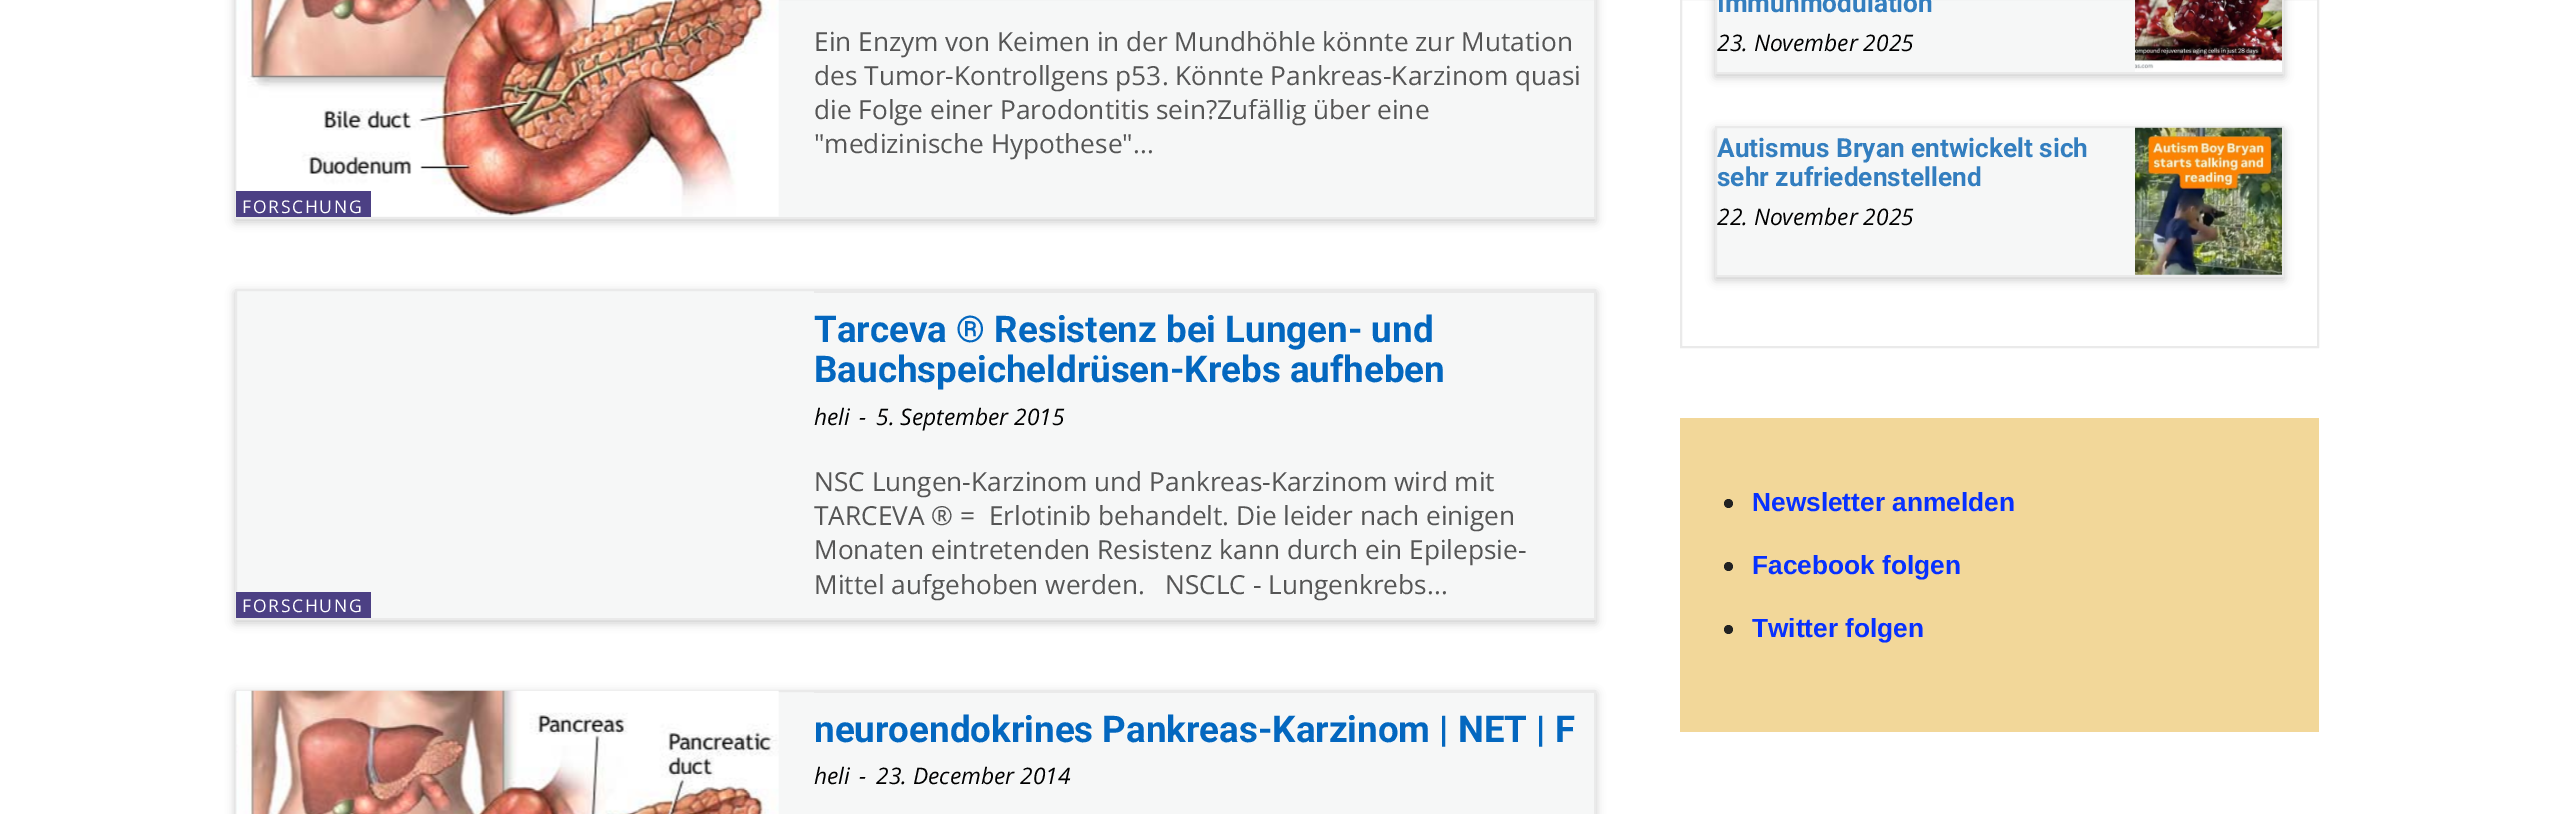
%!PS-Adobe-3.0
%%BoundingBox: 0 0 2553 814
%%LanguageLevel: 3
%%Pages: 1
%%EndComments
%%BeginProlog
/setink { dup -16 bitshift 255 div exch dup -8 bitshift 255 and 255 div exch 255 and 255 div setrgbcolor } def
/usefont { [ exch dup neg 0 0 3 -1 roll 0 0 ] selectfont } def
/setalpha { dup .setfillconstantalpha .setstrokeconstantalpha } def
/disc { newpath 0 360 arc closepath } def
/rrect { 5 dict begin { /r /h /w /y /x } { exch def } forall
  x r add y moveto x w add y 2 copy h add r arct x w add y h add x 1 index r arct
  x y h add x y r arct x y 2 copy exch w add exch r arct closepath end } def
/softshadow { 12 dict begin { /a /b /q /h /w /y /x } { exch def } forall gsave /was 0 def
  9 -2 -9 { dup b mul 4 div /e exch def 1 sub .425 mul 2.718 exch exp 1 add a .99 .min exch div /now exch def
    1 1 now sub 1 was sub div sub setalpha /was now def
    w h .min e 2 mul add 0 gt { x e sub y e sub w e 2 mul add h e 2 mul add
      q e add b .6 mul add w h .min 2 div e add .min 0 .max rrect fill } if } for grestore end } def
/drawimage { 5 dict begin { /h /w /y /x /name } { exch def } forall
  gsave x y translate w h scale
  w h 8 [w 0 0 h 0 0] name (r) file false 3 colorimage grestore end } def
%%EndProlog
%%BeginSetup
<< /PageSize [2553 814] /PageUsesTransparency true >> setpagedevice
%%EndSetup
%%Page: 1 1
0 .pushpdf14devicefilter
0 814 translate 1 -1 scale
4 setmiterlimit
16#FFFFFF setink
0 0 2553 814 rectfill
16#000000 setink
235 -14 1361 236 0 4.5 0.2 softshadow
16#F6F7F7 setink
371 0 1223 217 rectfill
16#EAEAEA setink
2 setlinewidth
236 -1 1359 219 rectstroke
/OpenSans-Regular 26.25 usefont
16#555555 setink
[
    [(Ein Enzym von Keimen in der Mundhöhle könnte zur Mutation) 814 51]
    [(des Tumor-Kontrollgens p53. Könnte Pankreas-Karzinom quasi) 814 85]
    [(die Folge einer Parodontitis sein?Zufällig über eine) 814 119]
    [("medizinische Hypothese"...) 814 153]
] { aload pop moveto show } forall
(img1.raw) 236 0 543 217 drawimage
16#4C4084 setink
236 191 135 26 rectfill
/OpenSans-Regular 17.5 usefont
16#FFFFFF setink
242 213 moveto 1.75 0 (FORSCHUNG) ashow
16#000000 setink
235 292 1361 331 0 4.5 0.2 softshadow
16#F6F7F7 setink
236 290 moveto 1595 290 lineto 1595 619 lineto 236 619 lineto closepath gsave fill grestore
16#EAEAEA setink
stroke
814 291 780 2 rectfill
/Roboto-Bold 36.75 usefont
16#0367BF setink
814 342 moveto (Tarceva ® Resistenz bei Lungen- und) show
814 382 moveto (Bauchspeicheldrüsen-Krebs aufheben) show
/OpenSans-Italic 22.75 usefont
16#000000 setink
[
    [(heli) 814 425]
    [(-) 859 425]
    [(5. September 2015) 876 425]
] { aload pop moveto show } forall
/OpenSans-Regular 26.25 usefont
16#555555 setink
[
    [(NSC Lungen-Karzinom und Pankreas-Karzinom wird mit) 814 491]
    [(TARCEVA ® =  Erlotinib behandelt. Die leider nach einigen) 814 525]
    [(Monaten eintretenden Resistenz kann durch ein Epilepsie-) 814 559]
    [(Mittel aufgehoben werden.) 814 594]
    [(NSCLC - Lungenkrebs...) 1165 594]
] { aload pop moveto show } forall
16#4C4084 setink
236 592 135 26 rectfill
/OpenSans-Regular 17.5 usefont
16#FFFFFF setink
242 612 moveto 1.75 0 (FORSCHUNG) ashow
16#000000 setink
235 693 1361 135 0 4.5 0.2 softshadow
16#F6F7F7 setink
778 692 816 122 rectfill
16#EAEAEA setink
236 691 1359 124 rectstroke
(img2.raw) 236 690 543 124 drawimage
814 692 780 1 rectfill
/Roboto-Bold 36.75 usefont
16#0367BF setink
814 742 moveto (neuroendokrines Pankreas-Karzinom | NET | F) show
/OpenSans-Italic 22.75 usefont
16#000000 setink
[
    [(heli) 814 784]
    [(-) 859 784]
    [(23. December 2014) 876 784]
] { aload pop moveto show } forall
16#EAEAEA setink
1681 -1 637 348 rectstroke
16#000000 setink
1715 -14 569 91 0 4.5 0.2 softshadow
16#F6F7F7 setink
1716 -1 moveto 2283 -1 lineto 2283 73 lineto 1716 73 lineto closepath gsave fill grestore
16#EAEAEA setink
stroke
/Roboto-Bold 26.25 usefont
16#337EBF setink
1717 12 moveto (Immunmodulation) show
/OpenSans-Italic 22.75 usefont
16#000000 setink
1717 51 moveto (23. November 2025) show
(img3.raw) 2135 0 147 72 drawimage
1715 130 569 150 0 4.5 0.2 softshadow
16#F6F7F7 setink
1716 127 moveto 2283 127 lineto 2283 276 lineto 1716 276 lineto closepath gsave fill grestore
16#EAEAEA setink
stroke
/Roboto-Bold 26.25 usefont
16#337EBF setink
1717 157 moveto (Autismus Bryan entwickelt sich) show
1717 186 moveto (sehr zufriedenstellend) show
/OpenSans-Italic 22.75 usefont
16#000000 setink
1717 225 moveto (22. November 2025) show
(img4.raw) 2135 127 147 148 drawimage
16#F2D799 setink
1680 418 639 314 rectfill
16#222222 setink
1728.5 503.5 4.5 disc fill
/LiberationSans-Bold 26.25 usefont
16#0730FF setink
1752 511 moveto (Newsletter anmelden) show
16#222222 setink
1728.5 566.5 4.5 disc fill
16#0730FF setink
1752 574 moveto (Facebook folgen) show
16#222222 setink
1728.5 629.5 4.5 disc fill
16#0730FF setink
1752 637 moveto (Twitter folgen) show
.poppdf14devicefilter showpage
%%EOF
